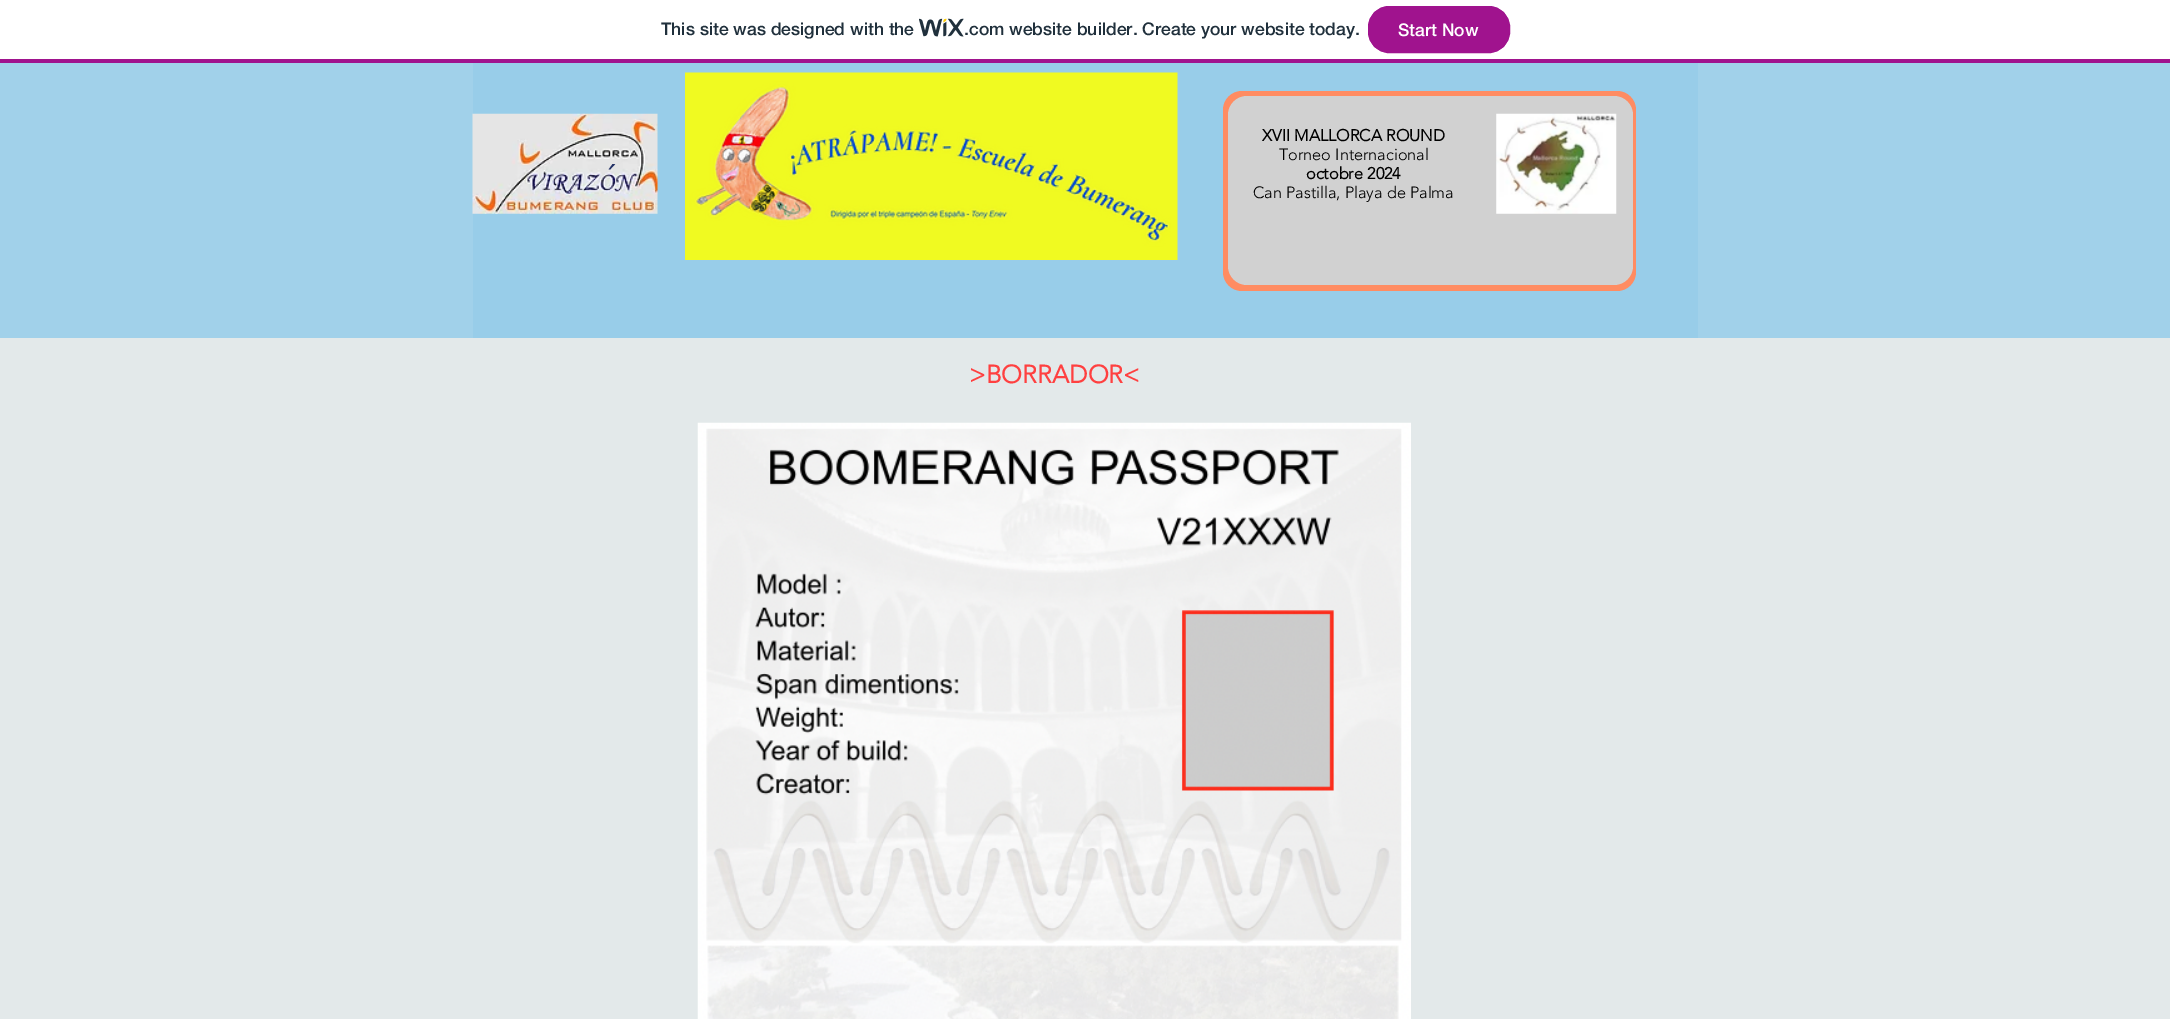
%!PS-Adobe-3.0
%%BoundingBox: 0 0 2170 1019
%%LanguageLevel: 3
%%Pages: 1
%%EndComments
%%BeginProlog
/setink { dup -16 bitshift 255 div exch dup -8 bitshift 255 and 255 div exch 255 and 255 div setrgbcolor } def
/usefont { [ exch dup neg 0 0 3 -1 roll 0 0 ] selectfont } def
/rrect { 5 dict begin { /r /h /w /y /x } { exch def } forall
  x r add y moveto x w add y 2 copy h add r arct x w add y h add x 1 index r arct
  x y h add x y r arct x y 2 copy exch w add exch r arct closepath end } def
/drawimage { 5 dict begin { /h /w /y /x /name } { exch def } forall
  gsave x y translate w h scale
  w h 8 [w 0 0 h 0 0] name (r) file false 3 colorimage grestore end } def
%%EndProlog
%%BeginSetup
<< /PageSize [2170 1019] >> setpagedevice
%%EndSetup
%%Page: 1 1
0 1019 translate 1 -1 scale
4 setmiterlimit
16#FFFFFF setink
0 0 2170 1019 rectfill
16#A0138E setink
0 59 2170 4 rectfill
/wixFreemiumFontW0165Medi-Medium 17.5 usefont
16#20303C setink
661 35 moveto (This site was designed with the) show
(img1.raw) 919 18 45 19 drawimage
964 35 moveto (.com website builder. Create your website today.) show
16#A0138E setink
1368.5 6.5 141 46 20.5 rrect gsave fill grestore
stroke
16#FFFFFF setink
1398 36 moveto (Start Now) show
16#A1D1EA setink
0 63 2170 275 rectfill
16#98CDE9 setink
473 63 1225 275 rectfill
(img2.raw) 472 113 186 101 drawimage
(img3.raw) 685 72 493 188 drawimage
16#FF8C62 setink
1223 91 413 200 19 rrect fill
16#D1D1D1 setink
1228 96 405 189 19 rrect fill
/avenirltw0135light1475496-Bold 16.25 usefont
16#000000 setink
1262 141 moveto (XVII MALLORCA ROUND) show
/avenirltw0135light1475496-Light 16.25 usefont
1279 160 moveto (Torneo Internacional) show
/avenirltw0135light1475496-Bold 16.25 usefont
1306 179 moveto (octobre 2024) show
/avenirltw0135light1475496-Light 16.25 usefont
1253 198 moveto (Can Pastilla, Playa de Palma) show
(img4.raw) 1496 113 121 101 drawimage
/avenirltw0135light1475496-Light 38 usefont
16#223166 setink
606 191 moveto (´) show
16#E3E9EA setink
0 338 2170 681 rectfill
/avenirltw0135light1475496-Bold 25 usefont
16#FF4040 setink
969 383 moveto (>BORRADOR<) show
(img5.raw) 697 422 714 597 drawimage
showpage
%%EOF
